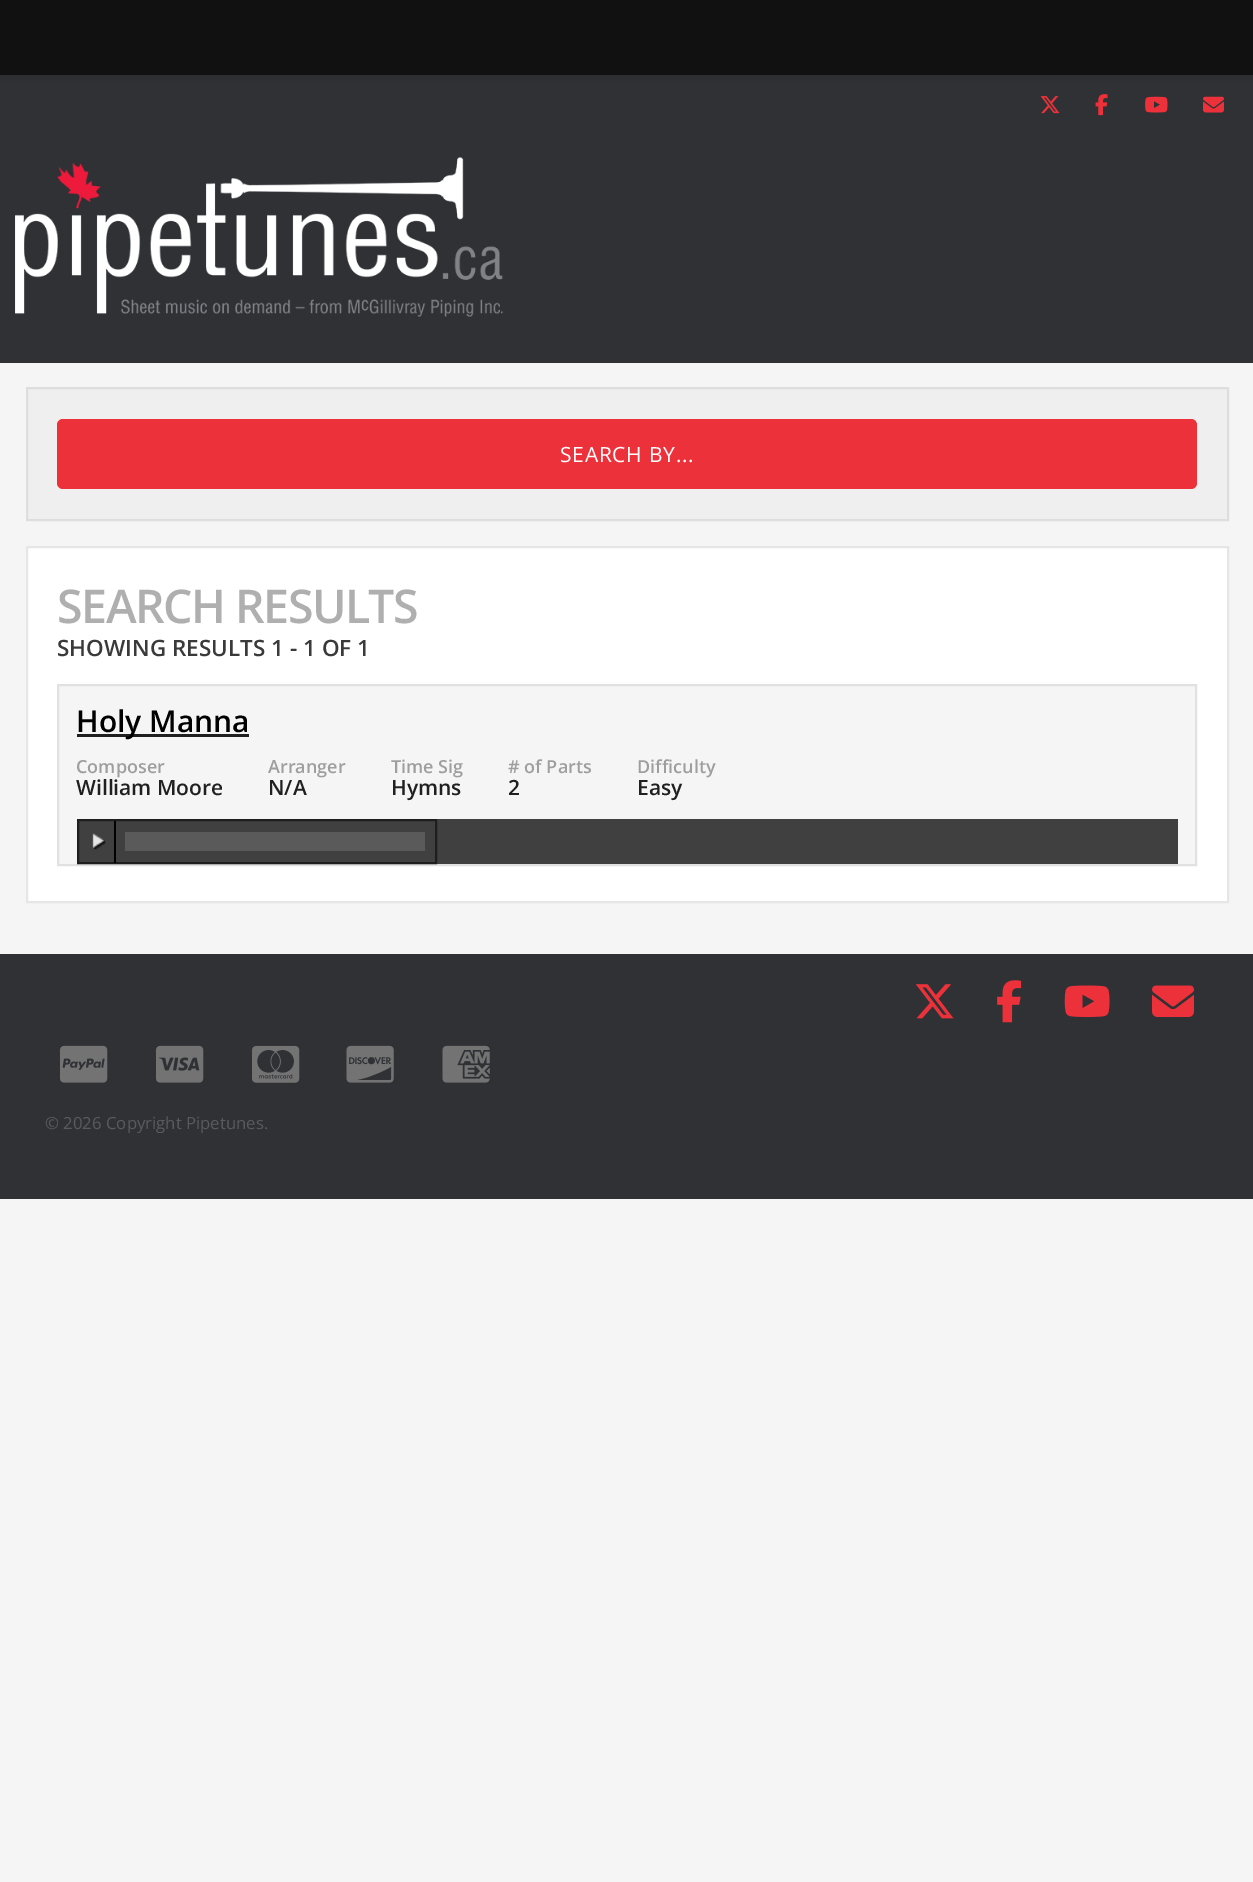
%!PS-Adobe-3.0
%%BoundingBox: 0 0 1253 1882
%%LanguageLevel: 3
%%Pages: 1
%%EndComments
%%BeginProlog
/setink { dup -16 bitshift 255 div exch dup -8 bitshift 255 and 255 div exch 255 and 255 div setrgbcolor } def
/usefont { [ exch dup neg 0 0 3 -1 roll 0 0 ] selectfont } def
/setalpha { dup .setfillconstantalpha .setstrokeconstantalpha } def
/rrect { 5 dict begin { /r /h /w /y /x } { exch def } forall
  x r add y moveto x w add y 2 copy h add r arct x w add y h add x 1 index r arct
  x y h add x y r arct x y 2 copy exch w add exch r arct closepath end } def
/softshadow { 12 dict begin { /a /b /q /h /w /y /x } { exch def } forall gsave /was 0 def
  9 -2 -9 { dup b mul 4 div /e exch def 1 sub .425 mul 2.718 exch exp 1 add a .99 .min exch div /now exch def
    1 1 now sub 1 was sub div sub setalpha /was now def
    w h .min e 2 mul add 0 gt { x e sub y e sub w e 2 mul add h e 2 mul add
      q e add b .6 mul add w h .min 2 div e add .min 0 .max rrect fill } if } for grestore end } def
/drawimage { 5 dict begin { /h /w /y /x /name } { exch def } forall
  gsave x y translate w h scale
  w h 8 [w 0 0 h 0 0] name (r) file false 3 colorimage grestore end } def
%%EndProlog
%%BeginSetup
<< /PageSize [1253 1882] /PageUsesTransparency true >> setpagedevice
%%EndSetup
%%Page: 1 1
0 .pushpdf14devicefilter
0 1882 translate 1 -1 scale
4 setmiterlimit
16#F5F5F5 setink
0 0 1253 1882 rectfill
16#2F3135 setink
0 75 1253 288 rectfill
16#000000 setink
0 0 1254 75 0 6 0.15 softshadow
16#111111 setink
0 0 1253 75 rectfill
(img1.raw) 1040 96 20 18 drawimage
(img2.raw) 1095 94 13 22 drawimage
(img3.raw) 1145 96 23 17 drawimage
(img4.raw) 1203 96 21 17 drawimage
(img5.raw) 15 157 488 160 drawimage
16#EFEFEF setink
27 388 moveto 1228 388 lineto 1228 520 lineto 27 520 lineto closepath gsave fill grestore
16#DEDEDE setink
2 setlinewidth
stroke
16#ED313A setink
57 419 1140 70 6 rrect fill
/OpenSans-Regular 21 usefont
16#FFFFFF setink
560 462 moveto 0.75 0 (SEARCH BY...) ashow
27 547 moveto 1228 547 lineto 1228 902 lineto 27 902 lineto closepath gsave fill grestore
16#E6E6E6 setink
stroke
/OpenSans-SemiBold 46.5 usefont
16#AFAFAF setink
57 623 moveto -1.5 0 (SEARCH RESULTS) ashow
/OpenSans-SemiBold 22.5 usefont
16#3A3A3A setink
57 656 moveto (SHOWING RESULTS 1 - 1 OF 1) show
16#F5F5F5 setink
58 685 moveto 1196 685 lineto 1196 865 lineto 58 865 lineto closepath gsave fill grestore
16#E1E1E1 setink
stroke
16#202020 setink
77 734 172 3 rectfill
/OpenSans-SemiBold 30 usefont
16#000000 setink
76 732 moveto (Holy Manna) show
/OpenSans-SemiBold 18 usefont
16#9E9E9E setink
76 773 moveto (Composer) show
/OpenSans-SemiBold 21 usefont
16#202020 setink
76 795 moveto (William Moore) show
/OpenSans-SemiBold 18 usefont
16#9E9E9E setink
268 773 moveto (Arranger) show
/OpenSans-SemiBold 21 usefont
16#202020 setink
268 795 moveto (N/A) show
/OpenSans-SemiBold 18 usefont
16#9E9E9E setink
391 773 moveto (Time Sig) show
/OpenSans-SemiBold 21 usefont
16#202020 setink
391 795 moveto (Hymns) show
/OpenSans-SemiBold 18 usefont
16#9E9E9E setink
508 773 moveto (# of Parts) show
/OpenSans-SemiBold 21 usefont
16#202020 setink
508 795 moveto (2) show
/OpenSans-SemiBold 18 usefont
16#9E9E9E setink
637 773 moveto (Difficulty) show
/OpenSans-SemiBold 21 usefont
16#202020 setink
637 795 moveto (Easy) show
16#404040 setink
79 819 1099 45 rectfill
16#1E1E1E setink
78 820 358 43 rectstroke
16#000000 setink
114 821 2 42 rectfill
(img6.raw) 92 833 14 17 drawimage
16#5A5A5A setink
125 832 300 19 rectfill
16#2F3135 setink
0 954 1253 245 rectfill
(img7.raw) 915 984 39 35 drawimage
(img8.raw) 997 980 25 43 drawimage
(img9.raw) 1064 985 46 32 drawimage
(img10.raw) 1152 985 42 32 drawimage
(img11.raw) 60 1045 48 38 drawimage
(img12.raw) 156 1045 48 38 drawimage
(img13.raw) 252 1045 48 38 drawimage
(img14.raw) 346 1045 48 38 drawimage
(img15.raw) 442 1045 48 38 drawimage
/OpenSans-Regular 16.75 usefont
16#595A5D setink
45 1129 moveto (© 2026 Copyright Pipetunes.) show
.poppdf14devicefilter showpage
%%EOF
